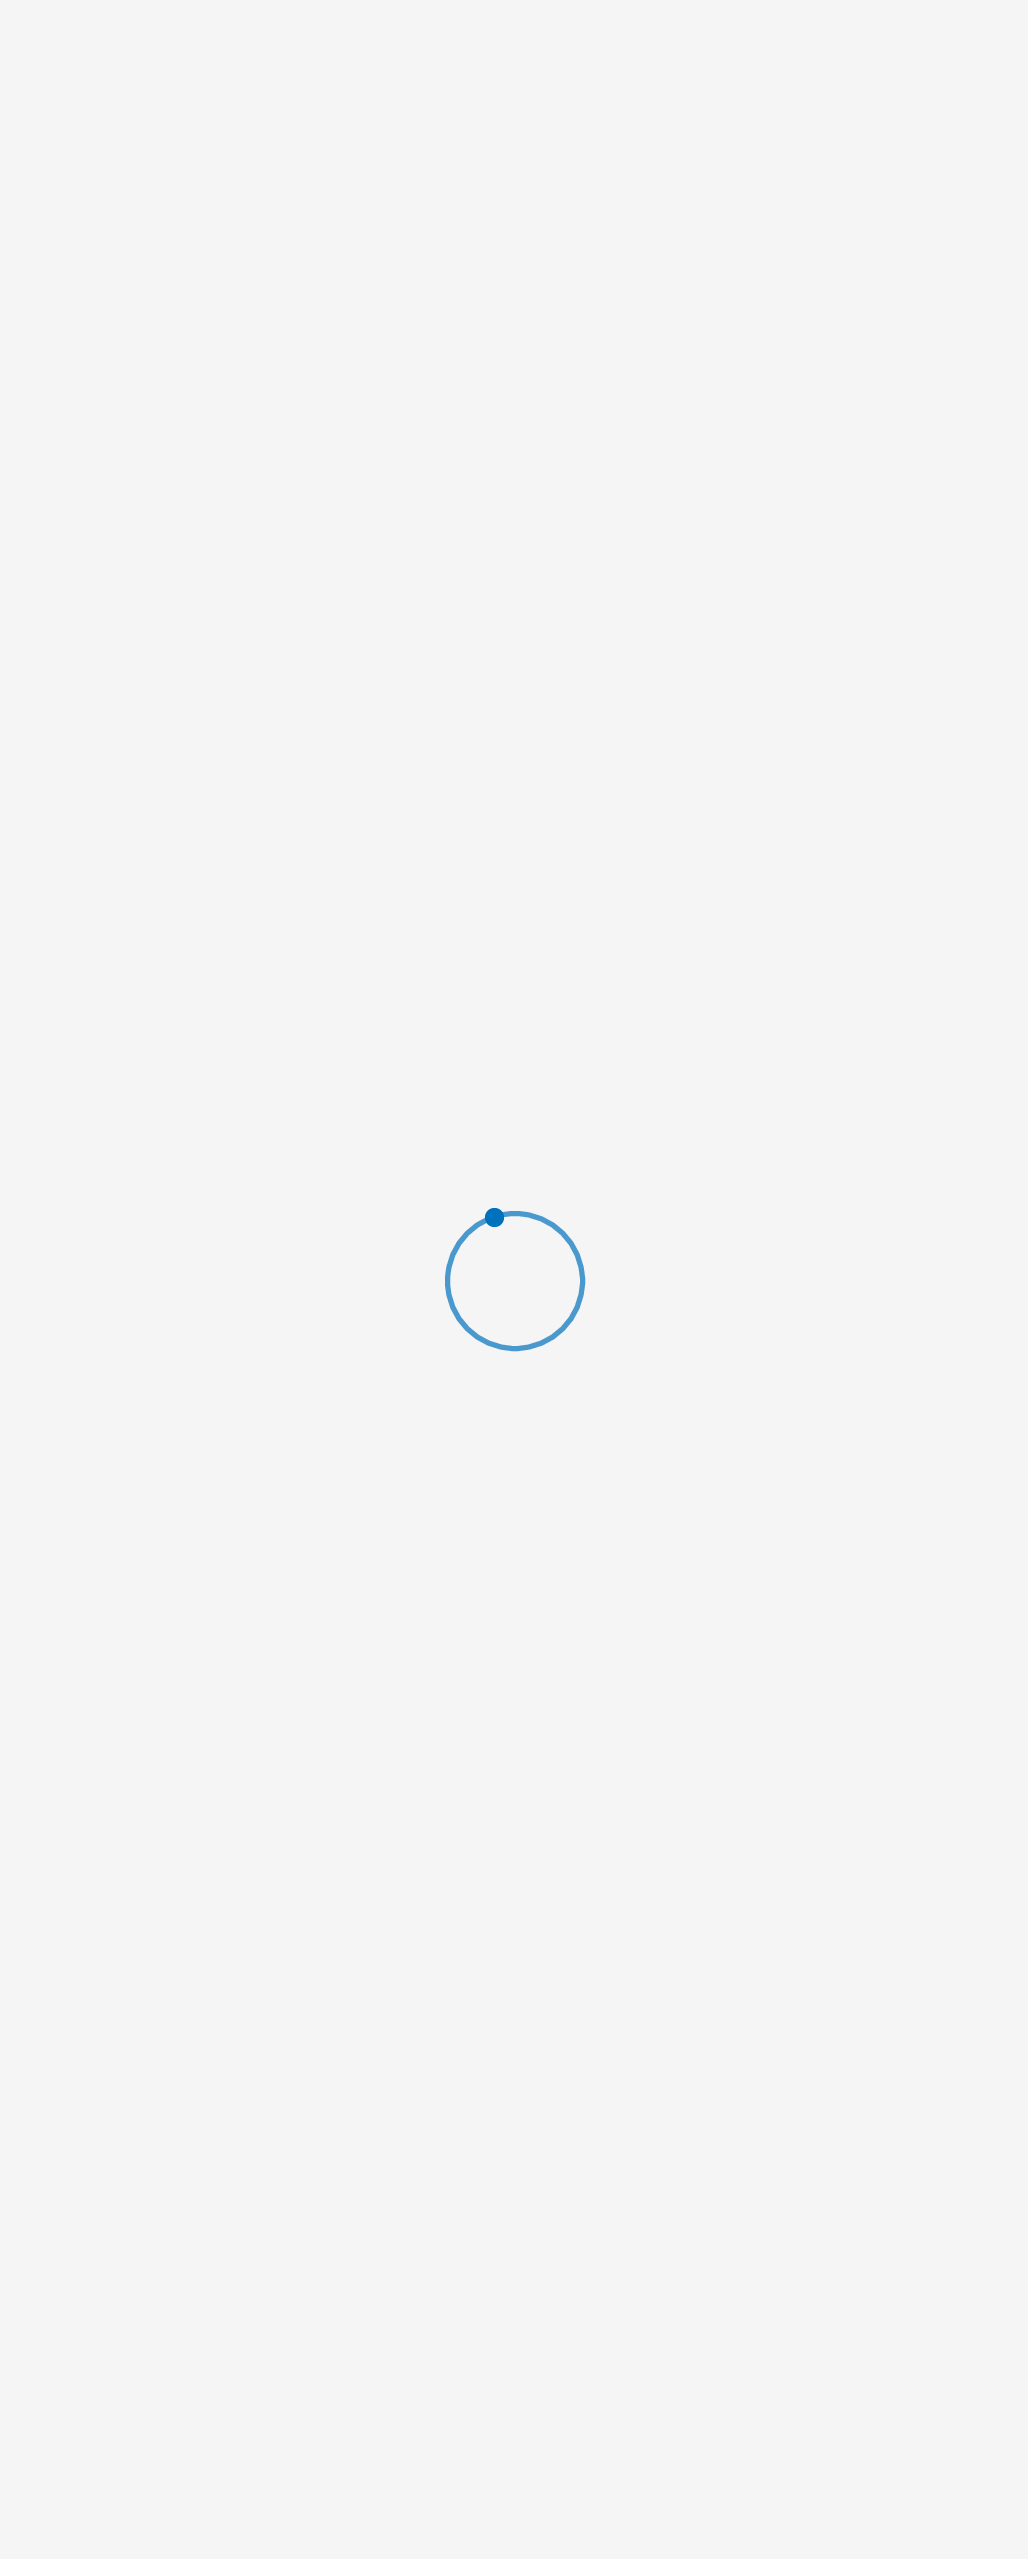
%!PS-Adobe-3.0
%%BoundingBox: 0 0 1028 2559
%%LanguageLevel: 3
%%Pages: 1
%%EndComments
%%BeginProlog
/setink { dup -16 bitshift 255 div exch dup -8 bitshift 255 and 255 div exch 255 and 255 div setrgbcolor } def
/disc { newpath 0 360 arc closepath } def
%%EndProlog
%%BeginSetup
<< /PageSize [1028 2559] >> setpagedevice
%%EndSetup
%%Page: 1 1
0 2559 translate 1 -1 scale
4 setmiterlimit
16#F5F5F5 setink
0 0 1028 2559 rectfill
16#4A99CE setink
5 setlinewidth
515 1281 67.5 disc stroke
16#0071BD setink
494.5 1217.5 9.5 disc fill
showpage
%%EOF
